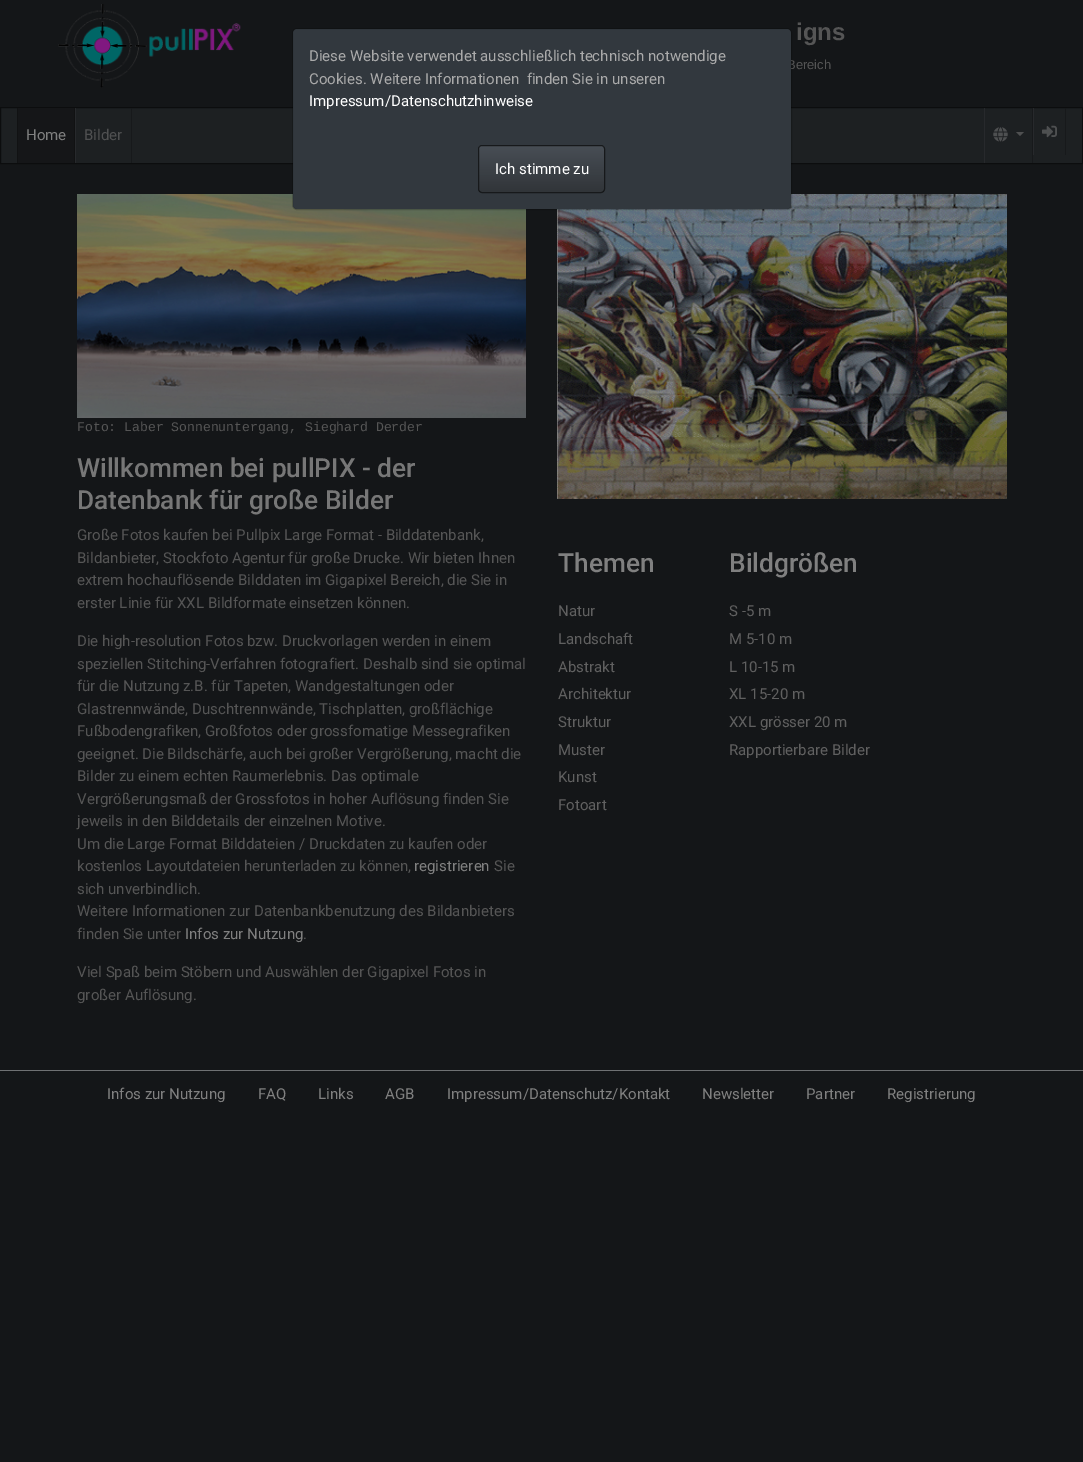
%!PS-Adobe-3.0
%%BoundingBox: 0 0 1083 1462
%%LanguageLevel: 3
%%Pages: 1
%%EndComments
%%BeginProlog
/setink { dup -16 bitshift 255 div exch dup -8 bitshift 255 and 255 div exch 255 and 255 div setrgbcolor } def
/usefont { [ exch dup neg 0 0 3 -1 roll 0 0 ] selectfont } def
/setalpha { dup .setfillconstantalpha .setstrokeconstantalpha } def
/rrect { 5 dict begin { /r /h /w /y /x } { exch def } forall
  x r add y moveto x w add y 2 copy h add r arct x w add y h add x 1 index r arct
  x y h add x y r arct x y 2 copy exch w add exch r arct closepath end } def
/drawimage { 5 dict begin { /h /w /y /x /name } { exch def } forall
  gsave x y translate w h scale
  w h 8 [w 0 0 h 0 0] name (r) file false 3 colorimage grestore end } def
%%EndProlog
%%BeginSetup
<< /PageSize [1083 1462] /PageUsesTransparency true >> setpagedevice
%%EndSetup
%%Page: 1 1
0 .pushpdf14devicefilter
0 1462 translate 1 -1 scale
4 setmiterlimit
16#141618 setink
0 0 1083 1462 rectfill
16#1D2022 setink
0.5 107.5 moveto 1082.5 107.5 lineto 1082.5 163.5 lineto 0.5 163.5 lineto closepath gsave fill grestore
16#0C0D0E setink
stroke
[
    [18 108 56 55 16#151618]
    [74 108 1 55 16#111213]
    [17 108 1 55 16#111213]
] { aload pop setink rectfill } forall
/Roboto-Regular 15 usefont
16#808080 setink
26 140 moveto (Home) show
16#17191B setink
131 108 1 55 rectfill
16#27292C setink
75 108 1 55 rectfill
16#4F5051 setink
84 140 moveto (Bilder) show
16#17191B setink
1032 108 1 55 rectfill
16#27292C setink
984 108 1 55 rectfill
(img1.raw) 993 127 15 15 drawimage
16#4F5051 setink
1016 132 moveto 1024 132 lineto 1020 136 lineto closepath fill
16#17191B setink
1065 108 1 47 rectfill
16#27292C setink
1033 108 1 47 rectfill
(img2.raw) 1042 125 15 13 drawimage
/LiberationSans-Regular 13 usefont
16#555555 setink
787 69 moveto (Bereich) show
(img4.raw) 77 194 449 224 drawimage
(img5.raw) 557 194 450 305 drawimage
16#32383E setink
293 29 498 180 4 rrect fill
0.2 setalpha
16#000000 setink
292.5 28.5 499 181 4.5 rrect stroke
/Roboto-Regular 15 usefont
1 setalpha
16#AAAAAA setink
309 61 moveto (Diese Website verwendet ausschließlich technisch notwendige) show
309 84 moveto (Cookies. Weitere Informationen  finden Sie in unseren) show
16#FFFFFF setink
309 106 moveto (Impressum/Datenschutzhinweise) show
16#3A3F44 setink
478 145 127 48 4 rrect fill
gsave
478 145 127 48 4 rrect clip newpath
gsave 479 146 moveto 604 146 lineto 604 192 lineto 479 192 lineto closepath clip newpath
<< /ShadingType 2 /ColorSpace /DeviceRGB /Coords [542 146 542 192] /Extend [true true] /Function << /FunctionType 3 /Domain [0 1] /Functions [<< /FunctionType 2 /Domain [0 1] /C0 [0.282 0.306 0.333] /C1 [0.227 0.247 0.267] /N 1 >> << /FunctionType 2 /Domain [0 1] /C0 [0.227 0.247 0.267] /C1 [0.192 0.208 0.224] /N 1 >>] /Bounds [0.6] /Encode [0 1 0 1] >> >> shfill grestore
grestore
0.6 setalpha
16#000000 setink
478.5 145.5 126 47 3.5 rrect stroke
1 setalpha
16#FFFFFF setink
495 174 moveto (Ich stimme zu) show
(img3.raw) 58 4 183 84 drawimage
/LiberationSans-Bold 24 usefont
16#555555 setink
796 40 moveto (igns) show
/LiberationMono-Regular 13.1 usefont
77 431 moveto (Foto: Laber Sonnenuntergang, Sieghard Derder) show
/Roboto-Medium 26.25 usefont
16#777777 setink
77 477 moveto (Willkommen bei pullPIX - der) show
77 509 moveto (Datenbank für große Bilder) show
/Roboto-Regular 15 usefont
16#555555 setink
[
    [(Große Fotos kaufen bei Pullpix Large Format - Bilddatenbank,) 77 540]
    [(Bildanbieter, Stockfoto Agentur für große Drucke. Wir bieten Ihnen) 77 563]
    [(extrem hochauflösende Bilddaten im Gigapixel Bereich, die Sie in) 77 585]
    [(erster Linie für XXL Bildformate einsetzen können.) 77 608]
    [(Die high-resolution Fotos bzw. Druckvorlagen werden in einem) 77 646]
    [(speziellen Stitching-Verfahren fotografiert. Deshalb sind sie optimal) 77 669]
    [(für die Nutzung z.B. für Tapeten, Wandgestaltungen oder) 77 691]
    [(Glastrennwände, Duschtrennwände, Tischplatten, großflächige) 77 714]
    [(Fußbodengrafiken, Großfotos oder grossfomatige Messegrafiken) 77 736]
    [(geeignet. Die Bildschärfe, auch bei großer Vergrößerung, macht die) 77 759]
    [(Bilder zu einem echten Raumerlebnis. Das optimale) 77 781]
    [(Vergrößerungsmaß der Grossfotos in hoher Auflösung finden Sie) 77 804]
    [(jeweils in den Bilddetails der einzelnen Motive.) 77 826]
    [(Um die Large Format Bilddateien / Druckdaten zu kaufen oder) 77 849]
    [(kostenlos Layoutdateien herunterladen zu können,) 77 871]
] { aload pop moveto show } forall
16#808080 setink
414 871 moveto (registrieren) show
16#555555 setink
[
    [(Sie) 494 871]
    [(sich unverbindlich.) 77 894]
    [(Weitere Informationen zur Datenbankbenutzung des Bildanbieters) 77 916]
    [(finden Sie unter) 77 939]
] { aload pop moveto show } forall
16#808080 setink
185 939 moveto (Infos zur Nutzung) show
16#555555 setink
[
    [(.) 303 939]
    [(Viel Spaß beim Stöbern und Auswählen der Gigapixel Fotos in) 77 977]
    [(großer Auflösung.) 77 1000]
] { aload pop moveto show } forall
/Roboto-Medium 26.25 usefont
16#808080 setink
558 572 moveto (Themen) show
729 572 moveto (Bildgrößen) show
/Roboto-Regular 15 usefont
16#606060 setink
[
    [(Natur) 558 616]
    [(S -5 m) 729 616]
    [(Landschaft) 558 644]
    [(M 5-10 m) 729 644]
    [(Abstrakt) 558 672]
    [(L 10-15 m) 729 672]
    [(Architektur) 558 699]
    [(XL 15-20 m) 729 699]
    [(Struktur) 558 727]
    [(XXL grösser 20 m) 729 727]
    [(Muster) 558 755]
    [(Rapportierbare Bilder) 729 755]
    [(Kunst) 558 782]
    [(Fotoart) 558 810]
] { aload pop moveto show } forall
16#6F7173 setink
0 1070 1083 1 rectfill
16#808080 setink
[
    [(Infos zur Nutzung) 107 1099]
    [(FAQ) 258 1099]
    [(Links) 318 1099]
    [(AGB) 385 1099]
    [(Impressum/Datenschutz/Kontakt) 447 1099]
    [(Newsletter) 702 1099]
    [(Partner) 806 1099]
    [(Registrierung) 887 1099]
] { aload pop moveto show } forall
.poppdf14devicefilter showpage
%%EOF
